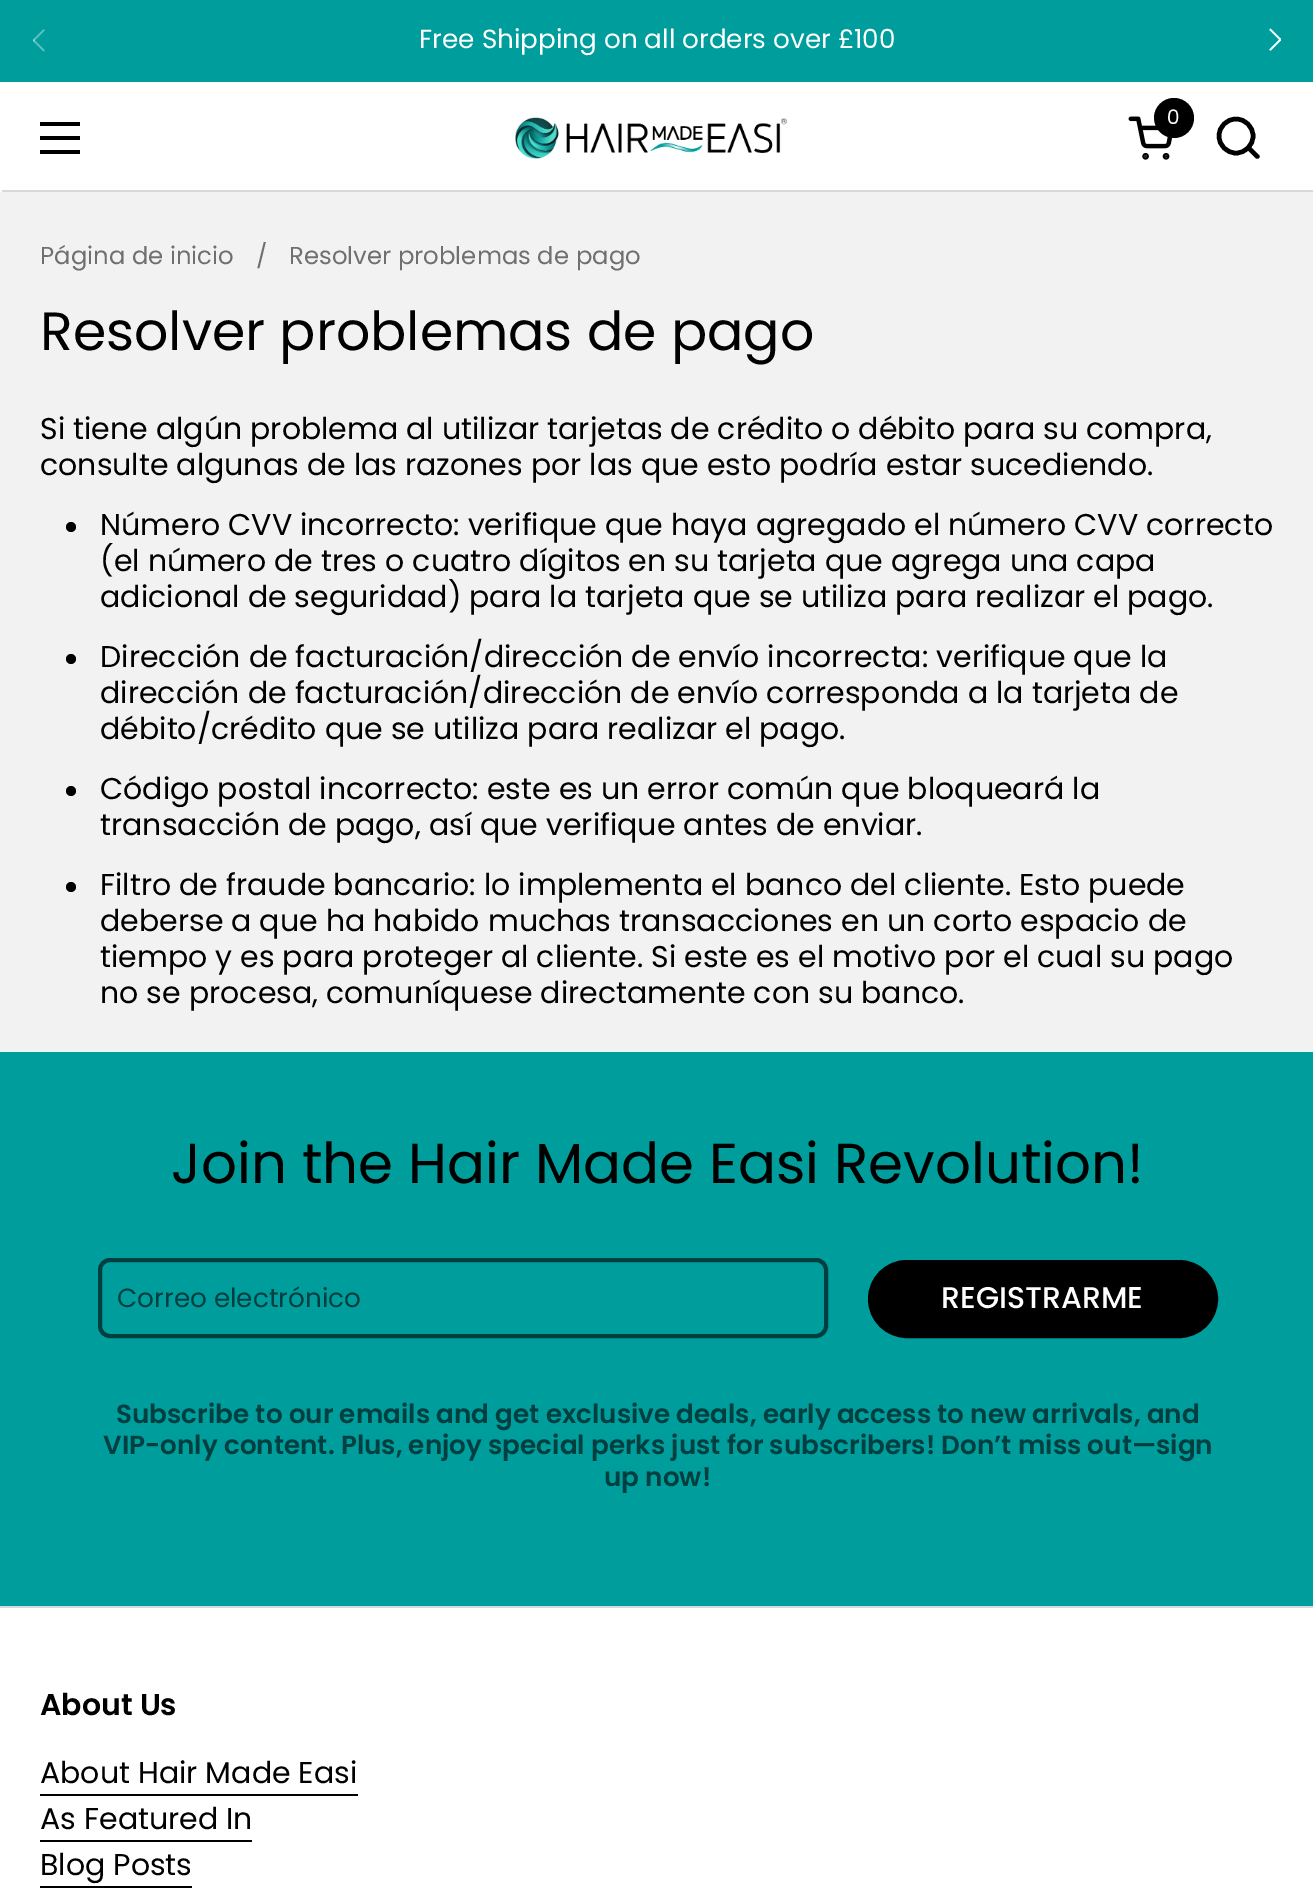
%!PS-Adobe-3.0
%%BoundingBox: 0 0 1313 1903
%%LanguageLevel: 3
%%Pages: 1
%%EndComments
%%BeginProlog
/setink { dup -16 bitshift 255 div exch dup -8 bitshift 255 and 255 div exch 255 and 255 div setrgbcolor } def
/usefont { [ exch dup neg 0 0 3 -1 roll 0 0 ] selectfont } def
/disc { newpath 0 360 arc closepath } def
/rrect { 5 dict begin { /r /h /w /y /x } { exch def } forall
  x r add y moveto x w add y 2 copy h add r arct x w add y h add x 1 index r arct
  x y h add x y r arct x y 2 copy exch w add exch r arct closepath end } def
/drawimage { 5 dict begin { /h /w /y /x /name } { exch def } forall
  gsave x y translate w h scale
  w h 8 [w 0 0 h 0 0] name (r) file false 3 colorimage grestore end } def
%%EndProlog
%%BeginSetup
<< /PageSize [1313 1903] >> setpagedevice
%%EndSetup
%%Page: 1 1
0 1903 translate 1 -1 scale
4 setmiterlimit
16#F2F2F2 setink
0 0 1313 1903 rectfill
16#009D9D setink
0 0 1313 82 rectfill
(img1.raw) 33 29 12 23 drawimage
/Poppins-Regular 26.25 usefont
16#FFFFFF setink
419 48 moveto (Free Shipping on all orders over £100) show
(img2.raw) 1269 28 12 23 drawimage
[
    [0 82 1313 110 16#FFFFFF]
    [40 122 40 4 16#000000]
    [40 136 40 4 16#000000]
    [40 150 40 4 16#000000]
] { aload pop setink rectfill } forall
(img3.raw) 515 117 272 42 drawimage
1174 118 20 disc fill
/Poppins-Regular 20 usefont
16#FFFFFF setink
1167 124 moveto (0) show
(img4.raw) 1128 116 44 44 drawimage
16#000000 setink
4.5 setlinewidth
1236 136 17 disc stroke
1251 147 moveto 1249.5 145 lineto 1246 148.5 lineto 1247.5 150 lineto closepath 1255.5 158 moveto 1258 160 1261 157 1259 155 curveto closepath 1247.5 150 moveto 1255.5 158 lineto 1259 155 lineto 1251 147 lineto closepath fill
16#D9D9D9 setink
2 190 1311 2 rectfill
/Poppins-Regular 24.4 usefont
16#6F6F6F setink
40 264 moveto (Página de inicio) show
gsave
40 242 1234 40 rectclip
256 264 moveto (/) show
grestore
289 264 moveto (Resolver problemas de pago) show
/Poppins-Regular 53.7 usefont
16#000000 setink
40 350 moveto (Resolver problemas de pago) show
/Poppins-Regular 30 usefont
40 439 moveto (Si tiene algún problema al utilizar tarjetas de crédito o débito para su compra,) show
40 475 moveto (consulte algunas de las razones por las que esto podría estar sucediendo.) show
71 527 5 disc fill
[
    [(Número CVV incorrecto: verifique que haya agregado el número CVV correcto) 100 535]
    [(\(el número de tres o cuatro dígitos en su tarjeta que agrega una capa) 100 571]
    [(adicional de seguridad\) para la tarjeta que se utiliza para realizar el pago.) 100 607]
] { aload pop moveto show } forall
71 659 5 disc fill
[
    [(Dirección de facturación/dirección de envío incorrecta: verifique que la) 100 667]
    [(dirección de facturación/dirección de envío corresponda a la tarjeta de) 100 703]
    [(débito/crédito que se utiliza para realizar el pago.) 100 739]
] { aload pop moveto show } forall
71 791 5 disc fill
100 799 moveto (Código postal incorrecto: este es un error común que bloqueará la) show
100 835 moveto (transacción de pago, así que verifique antes de enviar.) show
71 887 5 disc fill
[
    [(Filtro de fraude bancario: lo implementa el banco del cliente. Esto puede) 100 895]
    [(deberse a que ha habido muchas transacciones en un corto espacio de) 100 931]
    [(tiempo y es para proteger al cliente. Si este es el motivo por el cual su pago) 100 967]
    [(no se procesa, comuníquese directamente con su banco.) 100 1003]
] { aload pop moveto show } forall
16#009D9D setink
0 1052 1313 554 rectfill
/Poppins-Regular 56.25 usefont
16#000000 setink
171 1183 moveto (Join the Hair Made Easi Revolution!) show
16#003F3F setink
4 setlinewidth
100 1260 726 76 10 rrect stroke
/Poppins-Regular 26.25 usefont
117 1307 moveto (Correo electrónico) show
16#000000 setink
870 1262 346 74 37 rrect gsave fill grestore
stroke
/Poppins-Medium 30 usefont
16#FFFFFF setink
941 1308 moveto (REGISTRARME) show
/Poppins-SemiBold 26.25 usefont
16#003F3F setink
[
    [(Subscribe to our emails and get exclusive deals, early access to new arrivals, and) 116 1423]
    [(VIP-only content. Plus, enjoy special perks just for subscribers! Don’t miss out—sign) 103 1454]
    [(up now!) 604 1486]
] { aload pop moveto show } forall
16#FFFFFF setink
0 1608 1313 295 rectfill
16#D9D9D9 setink
0 1606 1313 2 rectfill
/Poppins-SemiBold 30 usefont
16#000000 setink
40 1715 moveto (About Us) show
/Poppins-Regular 30 usefont
40 1783 moveto (About Hair Made Easi) show
40 1794 318 2 rectfill
40 1829 moveto (As Featured In) show
40 1840 212 2 rectfill
40 1875 moveto (Blog Posts) show
40 1886 152 2 rectfill
showpage
%%EOF
